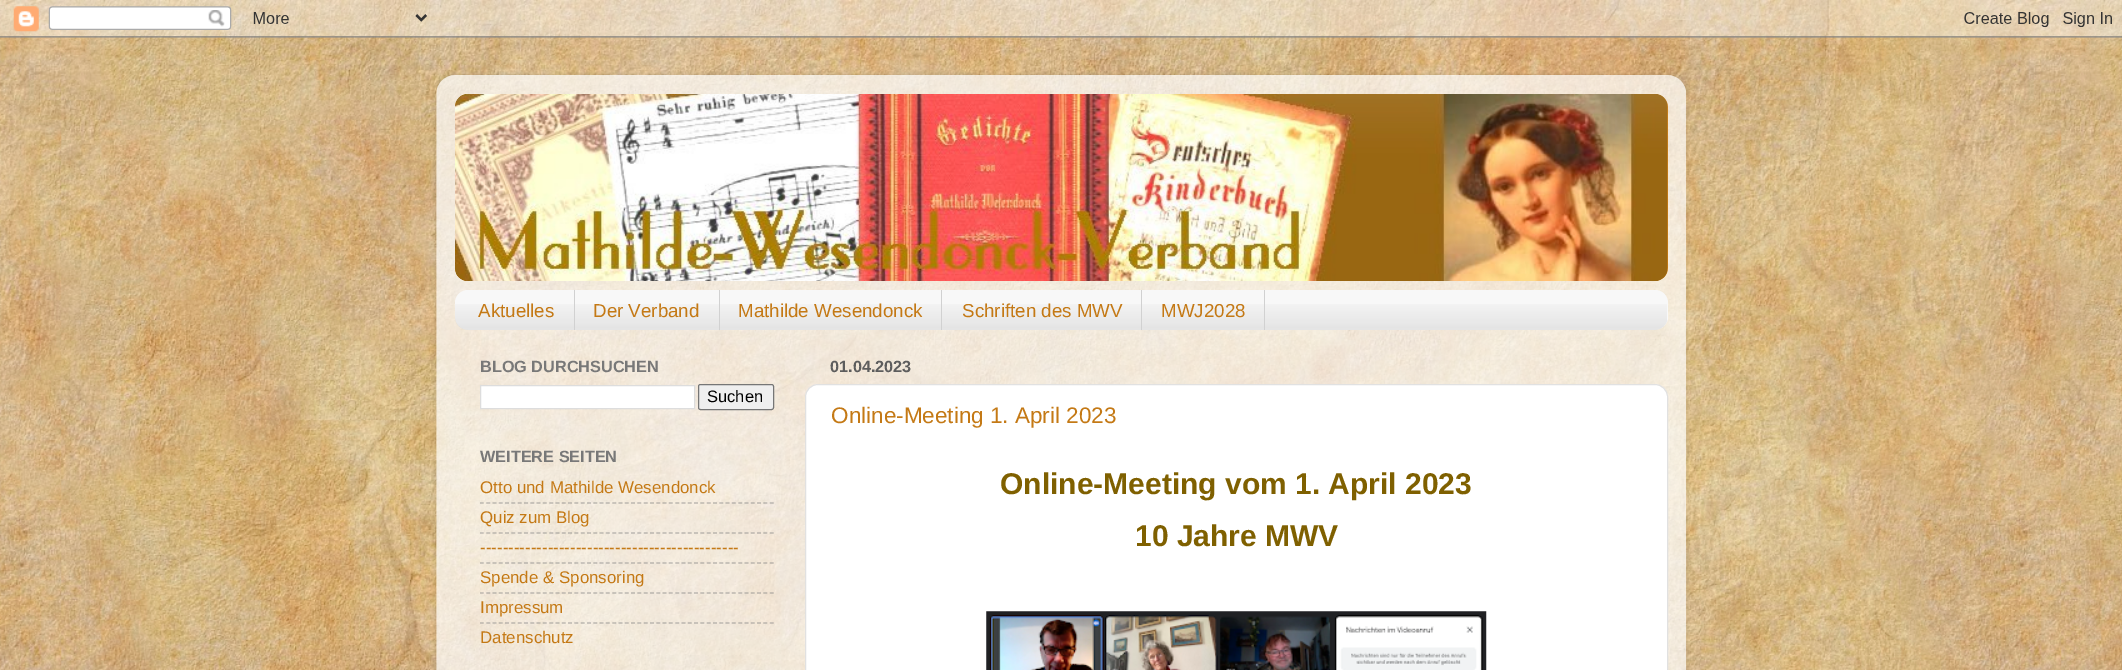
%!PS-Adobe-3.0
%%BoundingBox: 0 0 2122 670
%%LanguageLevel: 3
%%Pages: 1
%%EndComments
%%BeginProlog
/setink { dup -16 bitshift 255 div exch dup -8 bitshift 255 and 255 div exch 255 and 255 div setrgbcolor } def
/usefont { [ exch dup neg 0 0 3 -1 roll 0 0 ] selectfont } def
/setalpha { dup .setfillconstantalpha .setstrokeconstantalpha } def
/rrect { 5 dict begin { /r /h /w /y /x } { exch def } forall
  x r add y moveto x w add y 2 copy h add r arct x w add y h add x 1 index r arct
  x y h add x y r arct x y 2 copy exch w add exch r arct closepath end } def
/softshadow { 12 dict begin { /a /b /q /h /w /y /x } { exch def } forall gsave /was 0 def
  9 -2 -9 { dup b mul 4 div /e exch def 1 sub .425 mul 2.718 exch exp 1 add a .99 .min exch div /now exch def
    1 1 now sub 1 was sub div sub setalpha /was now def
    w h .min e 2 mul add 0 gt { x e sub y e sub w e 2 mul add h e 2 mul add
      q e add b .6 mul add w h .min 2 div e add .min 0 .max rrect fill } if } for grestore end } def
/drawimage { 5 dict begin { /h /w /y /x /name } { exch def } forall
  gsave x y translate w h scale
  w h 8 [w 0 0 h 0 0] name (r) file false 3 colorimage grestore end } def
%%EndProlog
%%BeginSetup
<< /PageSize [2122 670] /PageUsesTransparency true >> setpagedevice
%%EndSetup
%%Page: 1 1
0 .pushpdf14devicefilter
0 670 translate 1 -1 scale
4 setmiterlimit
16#FFFFFF setink
0 0 2122 670 rectfill
(img1.raw) 0 0 2122 670 drawimage
(img2.raw) 0 0 2122 38 drawimage
gsave
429 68 moveto 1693 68 lineto 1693 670 lineto 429 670 lineto closepath 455 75 moveto 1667 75 lineto 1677.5 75 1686 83.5 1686 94 curveto 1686 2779 lineto 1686 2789.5 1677.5 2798 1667 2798 curveto 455 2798 lineto 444.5 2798 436 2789.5 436 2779 curveto 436 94 lineto 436 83.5 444.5 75 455 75 curveto closepath eoclip newpath
16#000000 setink
436 75 1250 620 19 2 0.15 softshadow
grestore
(img3.raw) 436 75 1251 595 drawimage
16#C47915 setink
455 94 1213 187 13 rrect fill
(img4.raw) 455 94 1213 54 drawimage
(img5.raw) 455 94 1213 187 drawimage
16#F8F8F8 setink
455 290 1213 40 13 rrect fill
(img6.raw) 455 304 1212 26 drawimage
16#D1D1D1 setink
574 290 1 40 rectfill
/LiberationSans-Regular 18.75 usefont
16#C47915 setink
478 317 moveto (Aktuelles) show
16#D1D1D1 setink
719 290 1 40 rectfill
16#C47915 setink
593 317 moveto (Der Verband) show
16#D1D1D1 setink
941 290 1 40 rectfill
16#C47915 setink
738 317 moveto (Mathilde Wesendonck) show
16#D1D1D1 setink
1141 290 1 40 rectfill
16#C47915 setink
962 317 moveto (Schriften des MWV) show
16#D1D1D1 setink
1264 290 1 40 rectfill
16#C47915 setink
1161 317 moveto (MWJ2028) show
/LiberationSans-Bold 16.25 usefont
16#787878 setink
480 372 moveto (BLOG DURCHSUCHEN) show
16#FFFFFF setink
480.5 385.5 moveto 694.5 385.5 lineto 694.5 408.5 lineto 480.5 408.5 lineto closepath gsave fill grestore
16#DDDDDD setink
stroke
16#EFEFEF setink
698.5 384.5 75 25 2 rrect gsave fill grestore
16#767676 setink
stroke
/LiberationSans-Regular 16.5 usefont
16#000000 setink
707 402 moveto (Suchen) show
/LiberationSans-Bold 16.25 usefont
16#787878 setink
480 462 moveto (WEITERE SEITEN) show
/LiberationSans-Regular 16.9 usefont
16#C47915 setink
480 493 moveto (Otto und Mathilde Wesendonck) show
0.5 setalpha
16#808080 setink
1.2 setlinewidth
[3.75 2.55] 0 setdash
480 503 moveto 774 503 lineto stroke
1 setalpha
16#C47915 setink
480 523 moveto (Quiz zum Blog) show
0.5 setalpha
16#808080 setink
480 533 moveto 774 533 lineto stroke
1 setalpha
16#C47915 setink
480 553 moveto (----------------------------------------------) show
0.5 setalpha
16#808080 setink
480 563 moveto 774 563 lineto stroke
1 setalpha
16#C47915 setink
480 583 moveto (Spende & Sponsoring) show
0.5 setalpha
16#808080 setink
480 593 moveto 774 593 lineto stroke
1 setalpha
16#C47915 setink
480 613 moveto (Impressum) show
0.5 setalpha
16#808080 setink
480 623 moveto 774 623 lineto stroke
1 setalpha
16#C47915 setink
480 643 moveto (Datenschutz) show
/LiberationSans-Bold 16.25 usefont
16#5D5D5D setink
830 372 moveto (01.04.2023) show
16#FFFFFF setink
805.5 384.5 862 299 12.5 rrect gsave fill grestore
16#E1E1E1 setink
1 setlinewidth
[] 0 setdash
stroke
/LiberationSans-Regular 22.5 usefont
16#C47915 setink
831 423 moveto (Online-Meeting 1. April 2023) show
/LiberationSans-Bold 30 usefont
16#7F6000 setink
1000 494 moveto (Online-Meeting vom 1. April 2023) show
1135 546 moveto (10 Jahre MWV) show
(img7.raw) 986 611 501 59 drawimage
.poppdf14devicefilter showpage
%%EOF
